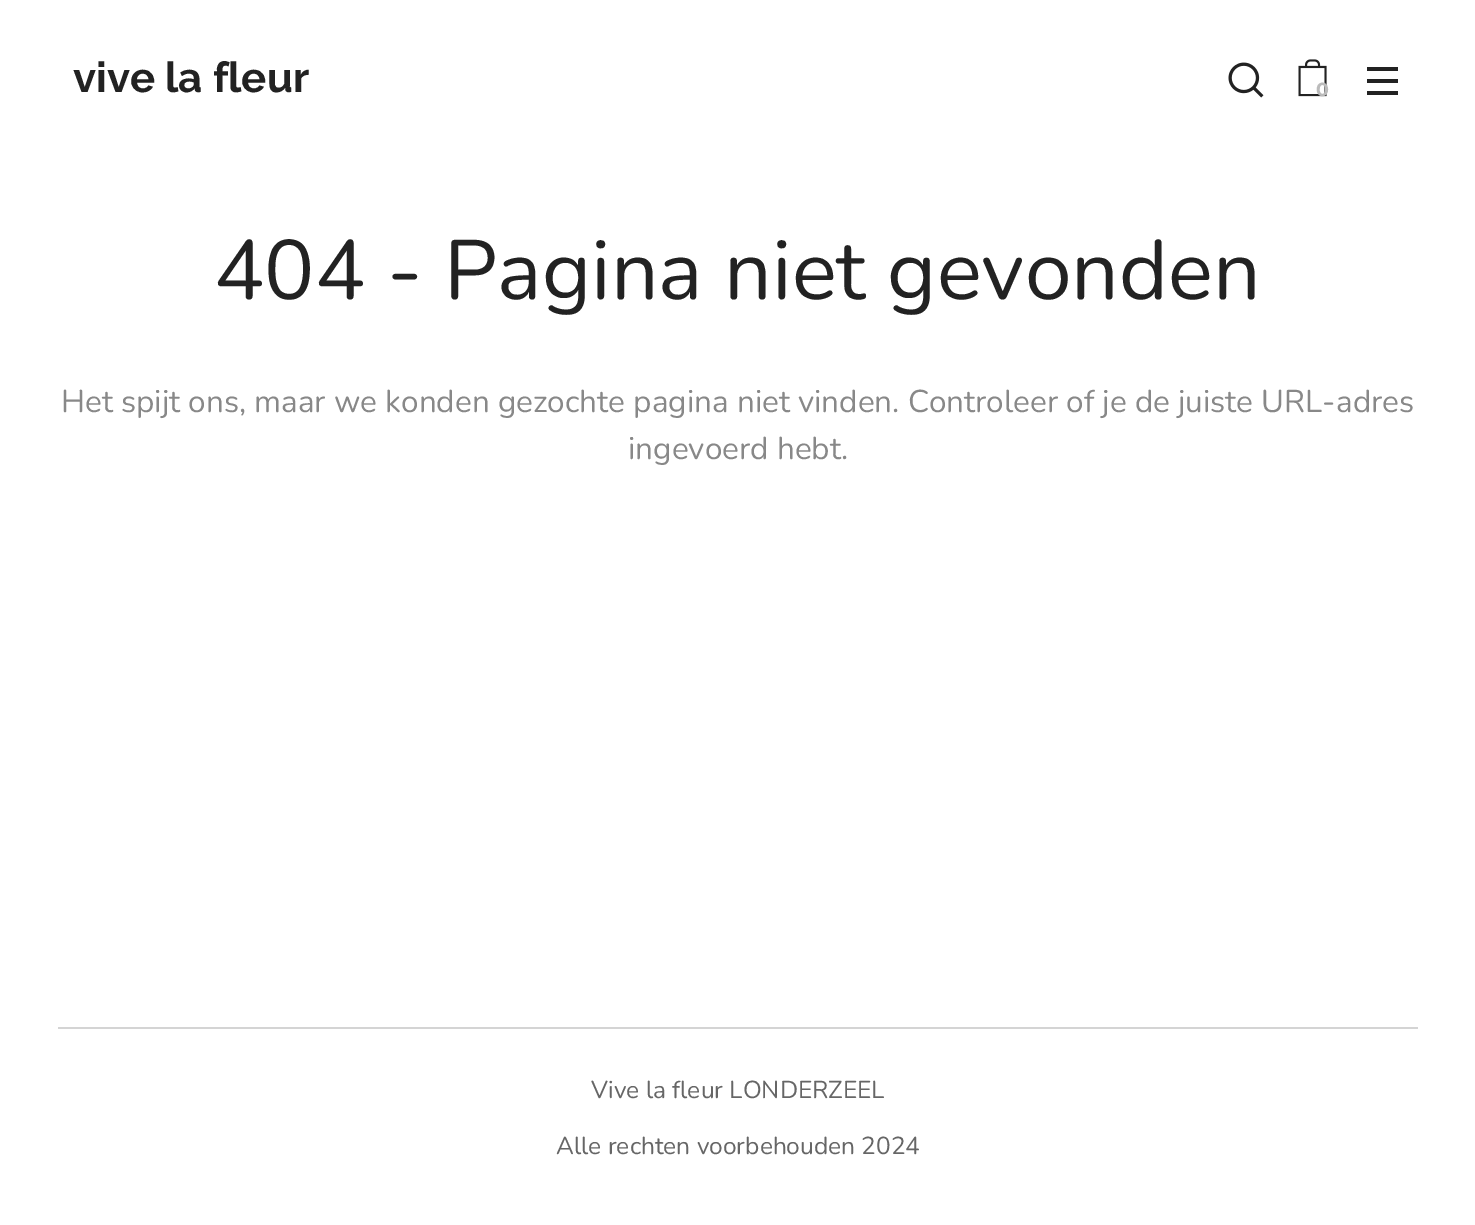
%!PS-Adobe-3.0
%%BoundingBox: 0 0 1475 1225
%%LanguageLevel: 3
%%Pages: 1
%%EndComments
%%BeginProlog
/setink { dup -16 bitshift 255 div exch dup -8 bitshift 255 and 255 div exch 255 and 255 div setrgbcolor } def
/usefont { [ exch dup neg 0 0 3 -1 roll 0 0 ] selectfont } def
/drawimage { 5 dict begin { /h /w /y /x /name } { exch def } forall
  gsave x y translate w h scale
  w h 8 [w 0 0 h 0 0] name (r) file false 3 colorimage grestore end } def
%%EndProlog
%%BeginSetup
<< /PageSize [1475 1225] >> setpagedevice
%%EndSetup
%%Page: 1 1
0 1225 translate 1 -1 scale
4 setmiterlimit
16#FFFFFF setink
0 0 1475 1225 rectfill
/Raleway-Bold 42 usefont
16#222222 setink
73 92 moveto (vive la fleur) show
(img1.raw) 1228 62 36 36 drawimage
(img2.raw) 1298 59 29 38 drawimage
/Montserrat-Bold 19 usefont
16#BBBBBB setink
1316 96 moveto (0) show
[
    [1367 79 31 4 16#222222]
    [1367 67 31 4 16#222222]
    [1367 91 31 4 16#222222]
] { aload pop setink rectfill } forall
/Nunito-Regular 84 usefont
214 299 moveto (404 - Pagina niet gevonden) show
/Nunito-Regular 31.5 usefont
16#888888 setink
61 412 moveto (Het spijt ons, maar we konden gezochte pagina niet vinden. Controleer of je de juiste URL-adres) show
628 459 moveto (ingevoerd hebt.) show
16#D4D4D4 setink
58 1027 1360 2 rectfill
/Nunito-Regular 24.5 usefont
16#666666 setink
591 1098 moveto (Vive la fleur LONDERZEEL) show
556 1154 moveto (Alle rechten voorbehouden 2024) show
showpage
%%EOF
